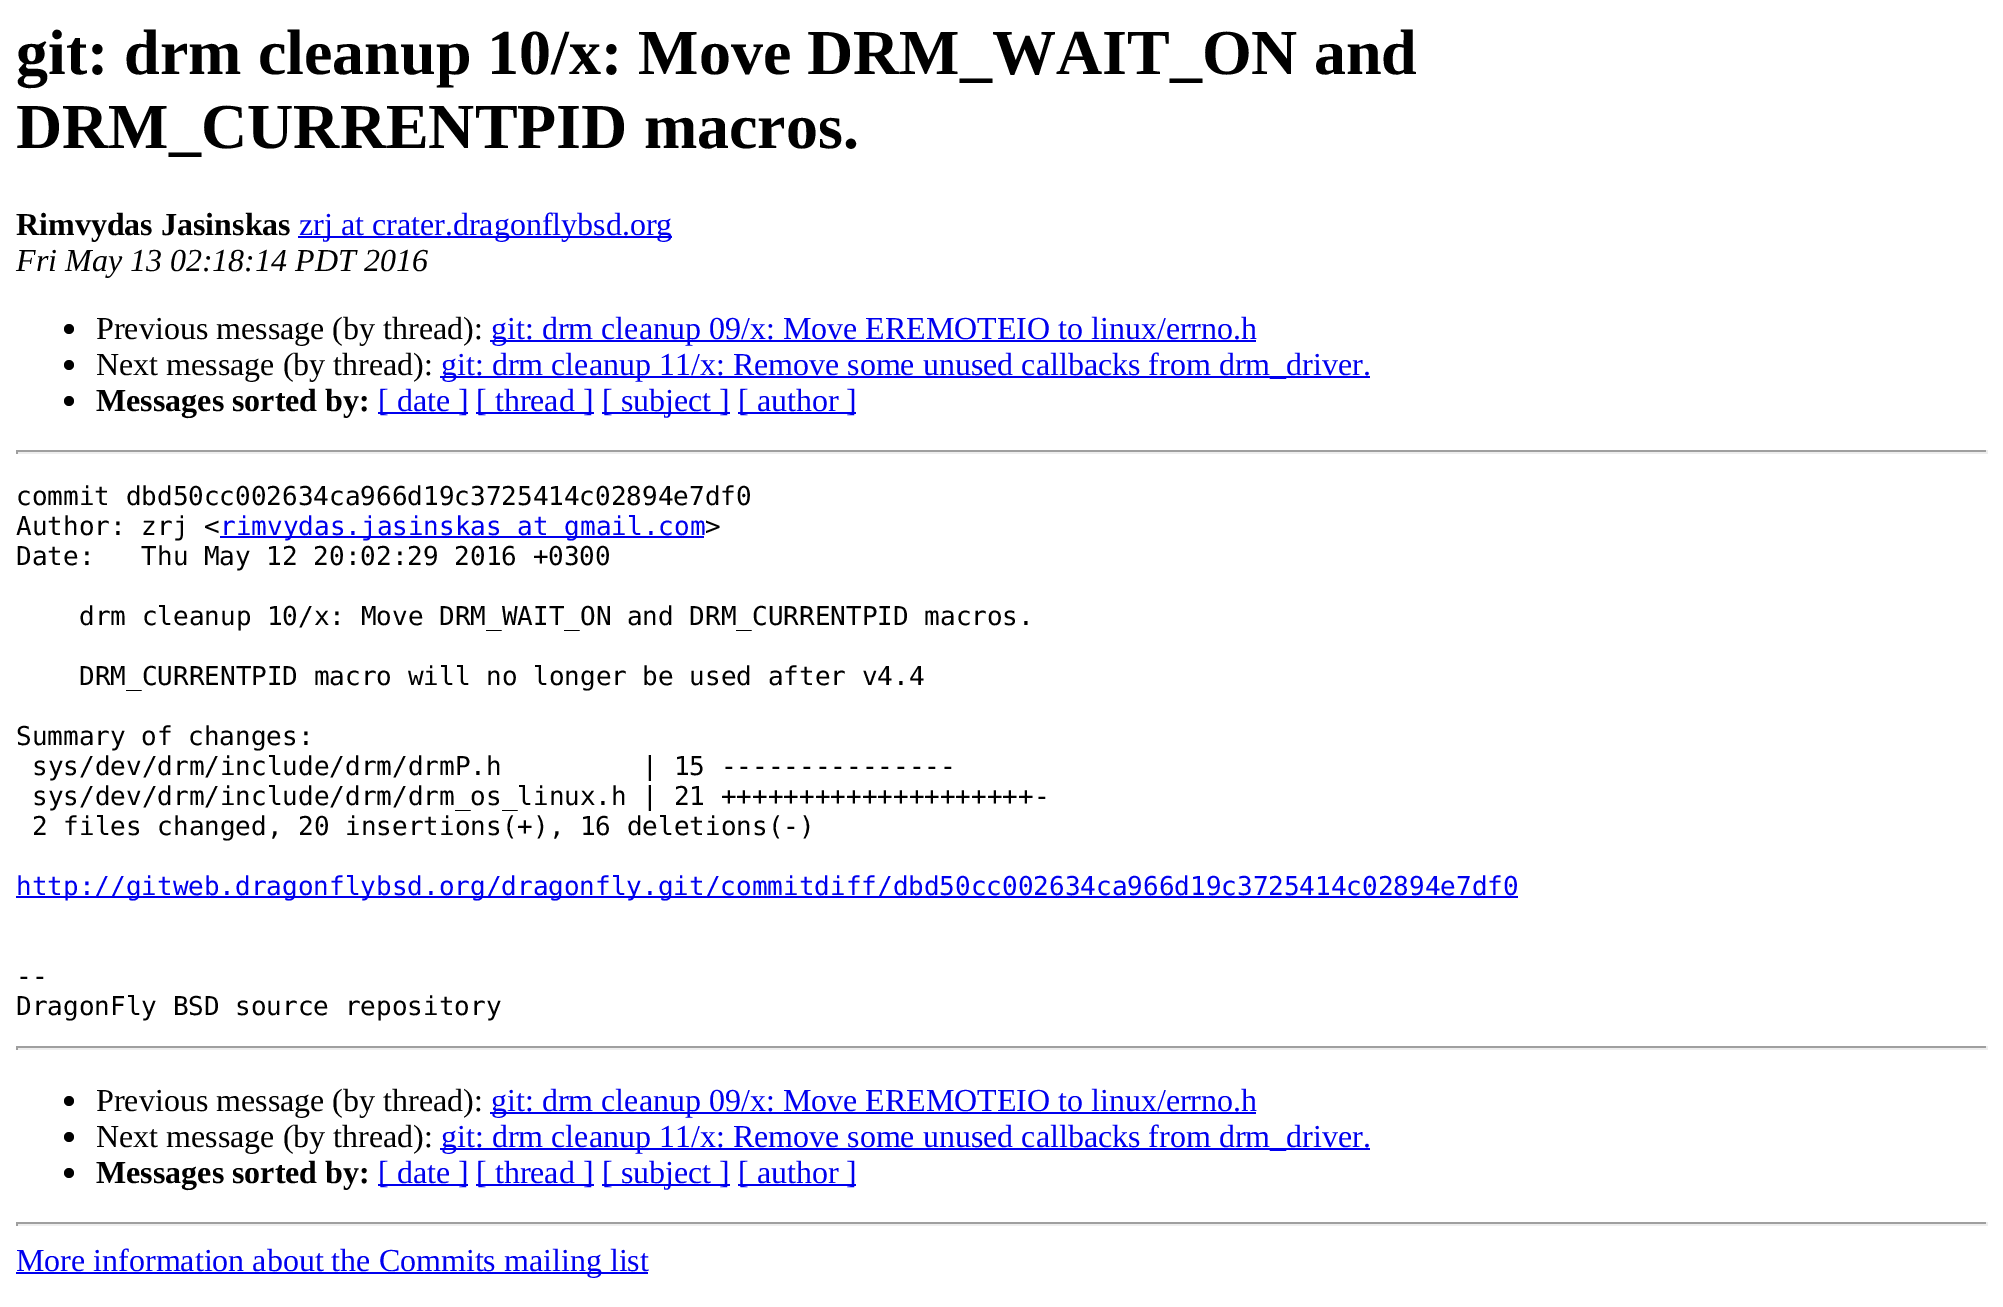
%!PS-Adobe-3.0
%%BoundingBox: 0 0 2003 1307
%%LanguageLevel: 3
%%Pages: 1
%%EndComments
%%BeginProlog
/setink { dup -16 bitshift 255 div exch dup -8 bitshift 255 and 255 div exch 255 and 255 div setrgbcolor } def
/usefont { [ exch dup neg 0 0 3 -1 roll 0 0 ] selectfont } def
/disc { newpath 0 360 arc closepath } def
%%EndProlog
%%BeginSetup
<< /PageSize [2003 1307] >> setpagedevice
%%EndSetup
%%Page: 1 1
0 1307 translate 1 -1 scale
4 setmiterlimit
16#FFFFFF setink
0 0 2003 1307 rectfill
/LiberationSerif-Bold 64 usefont
16#000000 setink
16 74 moveto (git: drm cleanup 10/x: Move DRM_WAIT_ON and) show
16 148 moveto (DRM_CURRENTPID macros.) show
/LiberationSerif-Bold 32 usefont
16 235 moveto (Rimvydas Jasinskas) show
16#0000EE setink
298 236 374 2 rectfill
/LiberationSerif-Regular 32 usefont
299 235 moveto (zrj at crater.dragonflybsd.org) show
/LiberationSerif-Italic 32 usefont
16#000000 setink
16 271 moveto (Fri May 13 02:18:14 PDT 2016) show
69 329 5 disc fill
/LiberationSerif-Regular 32 usefont
96 339 moveto (Previous message \(by thread\):) show
16#0000EE setink
490 340 766 2 rectfill
491 339 moveto (git: drm cleanup 09/x: Move EREMOTEIO to linux/errno.h) show
16#000000 setink
69 365 5 disc fill
96 375 moveto (Next message \(by thread\):) show
16#0000EE setink
440 376 930 2 rectfill
441 375 moveto (git: drm cleanup 11/x: Remove some unused callbacks from drm_driver.) show
16#000000 setink
69 401 5 disc fill
/LiberationSerif-Bold 32 usefont
96 411 moveto (Messages sorted by:) show
16#0000EE setink
378 412 90 2 rectfill
/LiberationSerif-Regular 32 usefont
378 411 moveto ([ date ]) show
476 412 118 2 rectfill
476 411 moveto ([ thread ]) show
602 412 128 2 rectfill
602 411 moveto ([ subject ]) show
738 412 118 2 rectfill
738 411 moveto ([ author ]) show
[
    [16 450 1972 2 16#9F9F9F]
    [1986 450 2 4 16#EEEEEE]
    [16 452 1972 2 16#EEEEEE]
    [16 450 2 4 16#9F9F9F]
] { aload pop setink rectfill } forall
/DejaVuSansMono-Regular 26 usefont
16#000000 setink
16 505 moveto (commit dbd50cc002634ca966d19c3725414c02894e7df0) show
16 535 moveto (Author: zrj <) show
16#0000EE setink
220 536 484 2 rectfill
220 535 moveto (rimvydas.jasinskas at gmail.com) show
16#000000 setink
[
    [(>) 705 535]
    [(Date:   Thu May 12 20:02:29 2016 +0300) 16 565]
    [(drm cleanup 10/x: Move DRM_WAIT_ON and DRM_CURRENTPID macros.) 79 625]
    [(DRM_CURRENTPID macro will no longer be used after v4.4) 79 685]
    [(Summary of changes:) 16 745]
    [(sys/dev/drm/include/drm/drmP.h         | 15 ---------------) 32 775]
    [(sys/dev/drm/include/drm/drm_os_linux.h | 21 ++++++++++++++++++++-) 32 805]
    [(2 files changed, 20 insertions\(+\), 16 deletions\(-\)) 32 835]
] { aload pop moveto show } forall
16#0000EE setink
16 896 1502 2 rectfill
16 895 moveto (http://gitweb.dragonflybsd.org/dragonfly.git/commitdiff/dbd50cc002634ca966d19c3725414c02894e7df0) show
16#000000 setink
16 985 moveto (--) show
16 1015 moveto (DragonFly BSD source repository) show
[
    [16 1046 1972 2 16#9F9F9F]
    [1986 1046 2 4 16#EEEEEE]
    [16 1048 1972 2 16#EEEEEE]
    [16 1046 2 4 16#9F9F9F]
] { aload pop setink rectfill } forall
16#000000 setink
69 1101 5 disc fill
/LiberationSerif-Regular 32 usefont
96 1111 moveto (Previous message \(by thread\):) show
16#0000EE setink
490 1112 766 2 rectfill
491 1111 moveto (git: drm cleanup 09/x: Move EREMOTEIO to linux/errno.h) show
16#000000 setink
69 1137 5 disc fill
96 1147 moveto (Next message \(by thread\):) show
16#0000EE setink
440 1148 930 2 rectfill
441 1147 moveto (git: drm cleanup 11/x: Remove some unused callbacks from drm_driver.) show
16#000000 setink
69 1173 5 disc fill
/LiberationSerif-Bold 32 usefont
96 1183 moveto (Messages sorted by:) show
16#0000EE setink
378 1184 90 2 rectfill
/LiberationSerif-Regular 32 usefont
378 1183 moveto ([ date ]) show
476 1184 118 2 rectfill
476 1183 moveto ([ thread ]) show
602 1184 128 2 rectfill
602 1183 moveto ([ subject ]) show
738 1184 118 2 rectfill
738 1183 moveto ([ author ]) show
[
    [16 1222 1972 2 16#9F9F9F]
    [1986 1222 2 4 16#EEEEEE]
    [16 1224 1972 2 16#EEEEEE]
    [16 1222 2 4 16#9F9F9F]
    [16 1272 632 2 16#0000EE]
] { aload pop setink rectfill } forall
16 1271 moveto (More information about the Commits mailing list) show
showpage
%%EOF
